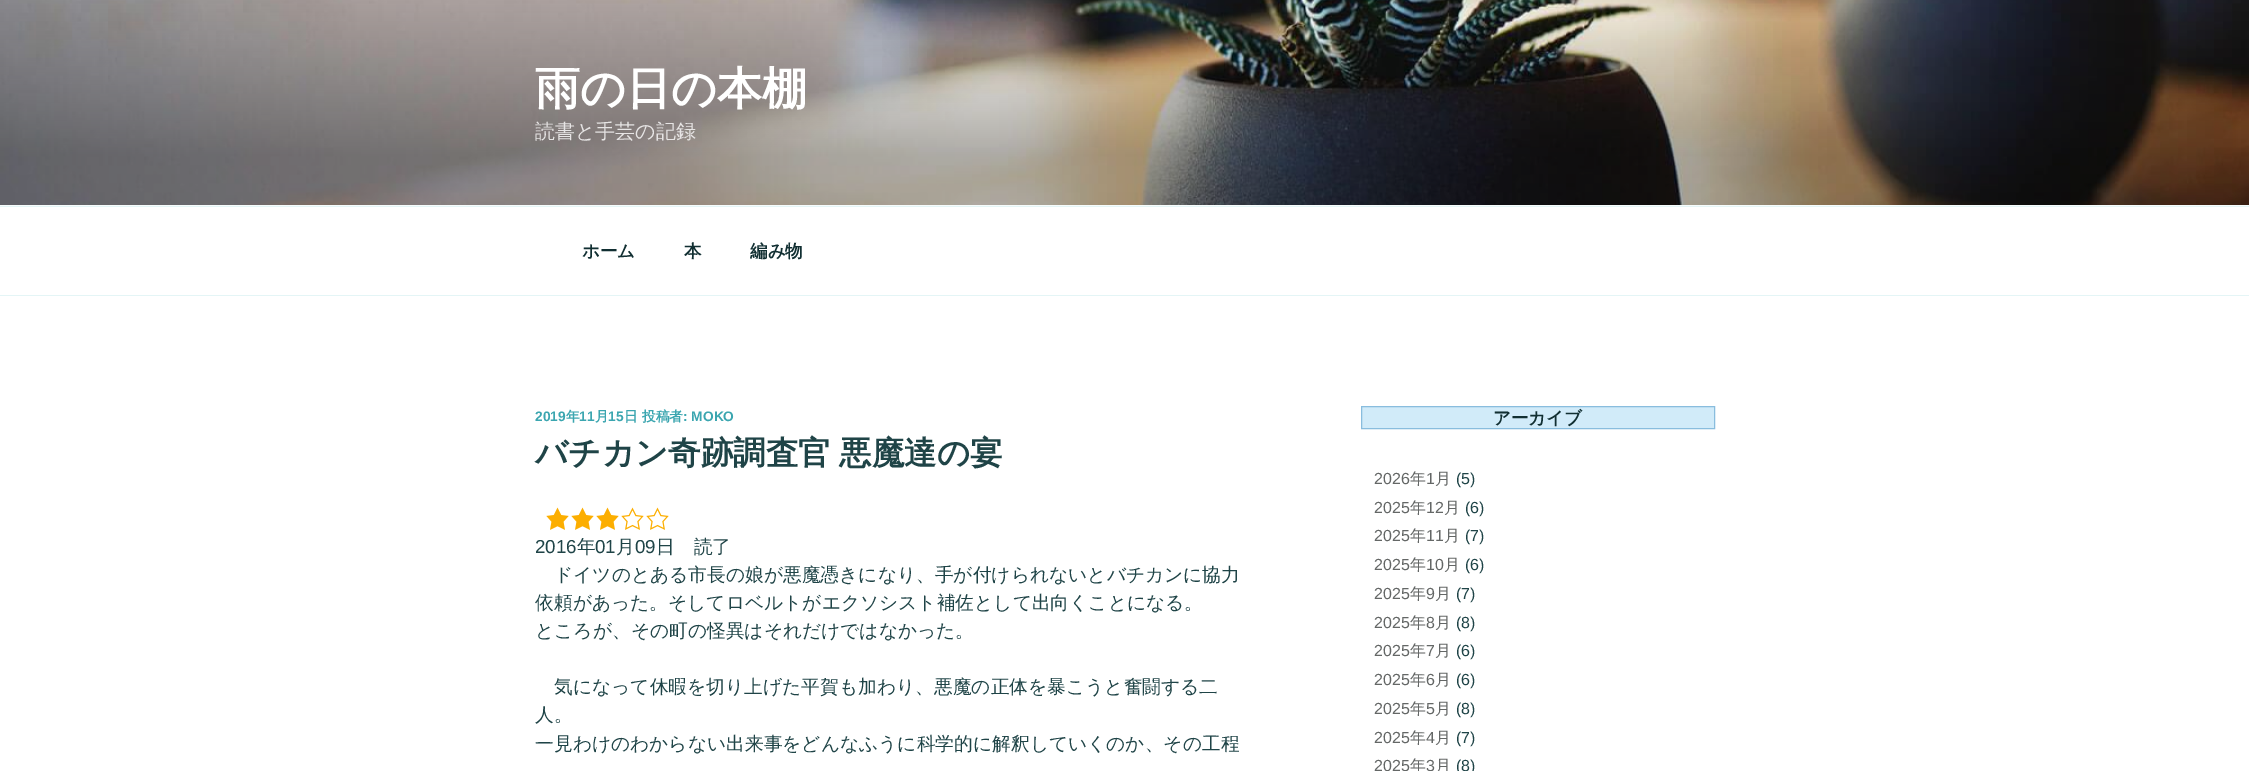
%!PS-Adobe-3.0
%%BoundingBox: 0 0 2249 771
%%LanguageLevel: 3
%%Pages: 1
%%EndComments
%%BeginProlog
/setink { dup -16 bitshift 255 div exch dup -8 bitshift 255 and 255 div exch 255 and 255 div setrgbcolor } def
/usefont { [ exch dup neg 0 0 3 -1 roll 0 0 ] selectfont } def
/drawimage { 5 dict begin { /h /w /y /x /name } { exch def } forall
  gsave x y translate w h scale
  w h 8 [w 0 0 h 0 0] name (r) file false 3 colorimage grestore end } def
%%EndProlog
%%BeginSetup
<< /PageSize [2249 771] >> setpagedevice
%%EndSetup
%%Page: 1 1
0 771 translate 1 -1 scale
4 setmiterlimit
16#FFFFFF setink
0 0 2249 771 rectfill
16#F7FCFC setink
0 205 2249 1 rectfill
(img1.raw) 0 0 2249 205 drawimage
/WenQuanYiZenHei-Bold 45 usefont
16#FFFFFF setink
535 104 moveto (雨の日の本棚) show
/WenQuanYiZenHei-Medium 20 usefont
16#E7E5E5 setink
535 138 moveto (読書と手芸の記録) show
16#E4F5F6 setink
0 206 2249 1 rectfill
0 295 2249 1 rectfill
/WenQuanYiZenHei-Bold 17.5 usefont
16#112F32 setink
[
    [(ホーム) 582 257]
    [(本) 684 257]
    [(編み物) 750 257]
] { aload pop moveto show } forall
/LiberationSans-Bold 13.75 usefont
16#3BA6B0 setink
535 421 moveto (2019) show
/WenQuanYiZenHei-Bold 13.75 usefont
566 421 moveto (年) show
/LiberationSans-Bold 13.75 usefont
579 421 moveto (11) show
/WenQuanYiZenHei-Bold 13.75 usefont
595 421 moveto (月) show
/LiberationSans-Bold 13.75 usefont
608 421 moveto (15) show
/WenQuanYiZenHei-Bold 13.75 usefont
624 421 moveto (日 投稿者) show
/LiberationSans-Bold 13.75 usefont
683 421 moveto (: MOKO) show
/WenQuanYiZenHei-Bold 32.5 usefont
16#1F4447 setink
535 464 moveto -1 0 32 (バチカン奇跡調査官 悪魔達の宴) widthshow
(img2.raw) 546 507 23 23 drawimage
(img2.raw) 571 507 23 23 drawimage
(img2.raw) 596 507 23 23 drawimage
(img3.raw) 621 507 23 23 drawimage
(img3.raw) 646 507 23 23 drawimage
/LiberationSans-Regular 18.75 usefont
535 553 moveto (2016) show
/WenQuanYiZenHei-Medium 18.75 usefont
577 553 moveto (年) show
/LiberationSans-Regular 18.75 usefont
595 553 moveto (01) show
/WenQuanYiZenHei-Medium 18.75 usefont
616 553 moveto (月) show
/LiberationSans-Regular 18.75 usefont
635 553 moveto (09) show
/WenQuanYiZenHei-Medium 18.75 usefont
[
    [(日　読了) 656 553]
    [(ドイツのとある市長の娘が悪魔憑きになり、手が付けられないとバチカンに協力) 554 581]
    [(依頼があった。そしてロベルトがエクソシスト補佐として出向くことになる。) 535 609]
    [(ところが、その町の怪異はそれだけではなかった。) 535 637]
    [(気になって休暇を切り上げた平賀も加わり、悪魔の正体を暴こうと奮闘する二) 554 693]
    [(人。) 535 721]
    [(一見わけのわからない出来事をどんなふうに科学的に解釈していくのか、その工程) 535 750]
] { aload pop moveto show } forall
16#D1EBF9 setink
1361.5 406.5 moveto 1714.5 406.5 lineto 1714.5 428.5 lineto 1361.5 428.5 lineto closepath gsave fill grestore
16#89BDDE setink
stroke
/WenQuanYiZenHei-Bold 17.5 usefont
16#112F32 setink
1493 424 moveto (アーカイブ) show
/LiberationSans-Regular 16 usefont
16#646766 setink
1374 484 moveto (2026) show
/WenQuanYiZenHei-Medium 16 usefont
1410 484 moveto (年) show
/LiberationSans-Regular 16 usefont
1426 484 moveto (1) show
/WenQuanYiZenHei-Medium 16 usefont
1435 484 moveto (月) show
/LiberationSans-Regular 16 usefont
16#1F4447 setink
1456 484 moveto (\(5\)) show
16#646766 setink
1374 513 moveto (2025) show
/WenQuanYiZenHei-Medium 16 usefont
1410 513 moveto (年) show
/LiberationSans-Regular 16 usefont
1426 513 moveto (12) show
/WenQuanYiZenHei-Medium 16 usefont
1444 513 moveto (月) show
/LiberationSans-Regular 16 usefont
16#1F4447 setink
1465 513 moveto (\(6\)) show
16#646766 setink
1374 541 moveto (2025) show
/WenQuanYiZenHei-Medium 16 usefont
1410 541 moveto (年) show
/LiberationSans-Regular 16 usefont
1426 541 moveto (11) show
/WenQuanYiZenHei-Medium 16 usefont
1444 541 moveto (月) show
/LiberationSans-Regular 16 usefont
16#1F4447 setink
1465 541 moveto (\(7\)) show
16#646766 setink
1374 570 moveto (2025) show
/WenQuanYiZenHei-Medium 16 usefont
1410 570 moveto (年) show
/LiberationSans-Regular 16 usefont
1426 570 moveto (10) show
/WenQuanYiZenHei-Medium 16 usefont
1444 570 moveto (月) show
/LiberationSans-Regular 16 usefont
16#1F4447 setink
1465 570 moveto (\(6\)) show
16#646766 setink
1374 599 moveto (2025) show
/WenQuanYiZenHei-Medium 16 usefont
1410 599 moveto (年) show
/LiberationSans-Regular 16 usefont
1426 599 moveto (9) show
/WenQuanYiZenHei-Medium 16 usefont
1435 599 moveto (月) show
/LiberationSans-Regular 16 usefont
16#1F4447 setink
1456 599 moveto (\(7\)) show
16#646766 setink
1374 628 moveto (2025) show
/WenQuanYiZenHei-Medium 16 usefont
1410 628 moveto (年) show
/LiberationSans-Regular 16 usefont
1426 628 moveto (8) show
/WenQuanYiZenHei-Medium 16 usefont
1435 628 moveto (月) show
/LiberationSans-Regular 16 usefont
16#1F4447 setink
1456 628 moveto (\(8\)) show
16#646766 setink
1374 656 moveto (2025) show
/WenQuanYiZenHei-Medium 16 usefont
1410 656 moveto (年) show
/LiberationSans-Regular 16 usefont
1426 656 moveto (7) show
/WenQuanYiZenHei-Medium 16 usefont
1435 656 moveto (月) show
/LiberationSans-Regular 16 usefont
16#1F4447 setink
1456 656 moveto (\(6\)) show
16#646766 setink
1374 685 moveto (2025) show
/WenQuanYiZenHei-Medium 16 usefont
1410 685 moveto (年) show
/LiberationSans-Regular 16 usefont
1426 685 moveto (6) show
/WenQuanYiZenHei-Medium 16 usefont
1435 685 moveto (月) show
/LiberationSans-Regular 16 usefont
16#1F4447 setink
1456 685 moveto (\(6\)) show
16#646766 setink
1374 714 moveto (2025) show
/WenQuanYiZenHei-Medium 16 usefont
1410 714 moveto (年) show
/LiberationSans-Regular 16 usefont
1426 714 moveto (5) show
/WenQuanYiZenHei-Medium 16 usefont
1435 714 moveto (月) show
/LiberationSans-Regular 16 usefont
16#1F4447 setink
1456 714 moveto (\(8\)) show
16#646766 setink
1374 743 moveto (2025) show
/WenQuanYiZenHei-Medium 16 usefont
1410 743 moveto (年) show
/LiberationSans-Regular 16 usefont
1426 743 moveto (4) show
/WenQuanYiZenHei-Medium 16 usefont
1435 743 moveto (月) show
/LiberationSans-Regular 16 usefont
16#1F4447 setink
1456 743 moveto (\(7\)) show
16#646766 setink
1374 771 moveto (2025) show
/WenQuanYiZenHei-Medium 16 usefont
1410 771 moveto (年) show
/LiberationSans-Regular 16 usefont
1426 771 moveto (3) show
/WenQuanYiZenHei-Medium 16 usefont
1435 771 moveto (月) show
/LiberationSans-Regular 16 usefont
16#1F4447 setink
1456 771 moveto (\(8\)) show
showpage
%%EOF
